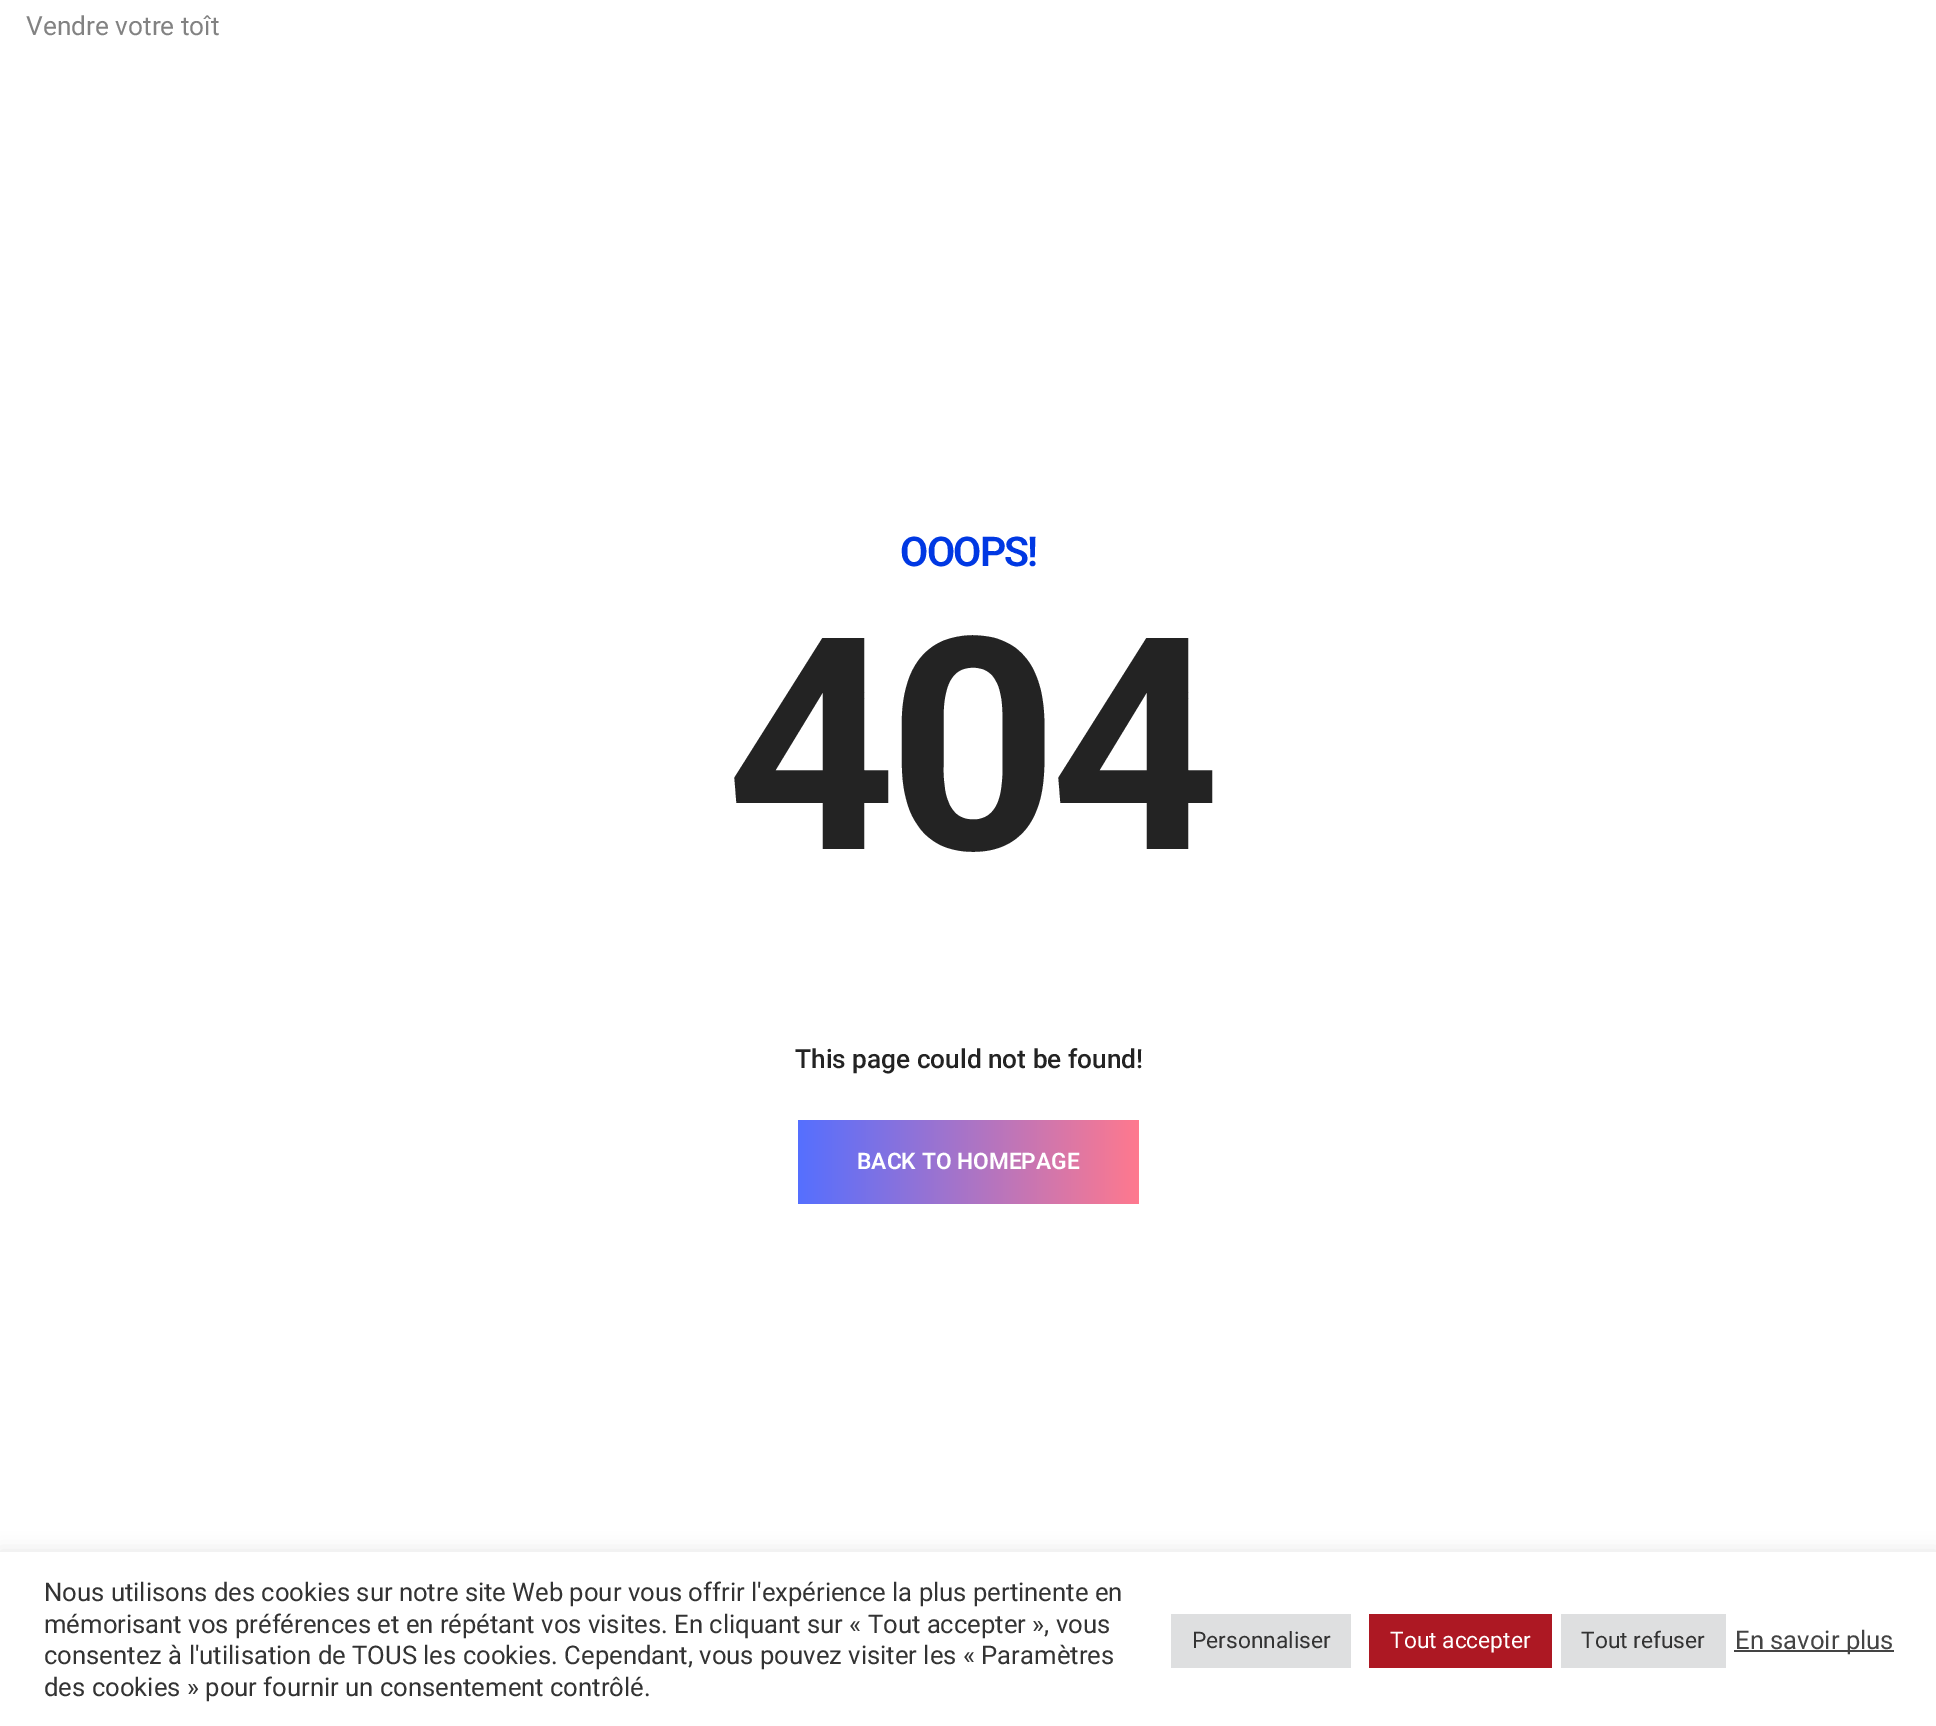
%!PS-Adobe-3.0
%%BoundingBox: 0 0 1936 1726
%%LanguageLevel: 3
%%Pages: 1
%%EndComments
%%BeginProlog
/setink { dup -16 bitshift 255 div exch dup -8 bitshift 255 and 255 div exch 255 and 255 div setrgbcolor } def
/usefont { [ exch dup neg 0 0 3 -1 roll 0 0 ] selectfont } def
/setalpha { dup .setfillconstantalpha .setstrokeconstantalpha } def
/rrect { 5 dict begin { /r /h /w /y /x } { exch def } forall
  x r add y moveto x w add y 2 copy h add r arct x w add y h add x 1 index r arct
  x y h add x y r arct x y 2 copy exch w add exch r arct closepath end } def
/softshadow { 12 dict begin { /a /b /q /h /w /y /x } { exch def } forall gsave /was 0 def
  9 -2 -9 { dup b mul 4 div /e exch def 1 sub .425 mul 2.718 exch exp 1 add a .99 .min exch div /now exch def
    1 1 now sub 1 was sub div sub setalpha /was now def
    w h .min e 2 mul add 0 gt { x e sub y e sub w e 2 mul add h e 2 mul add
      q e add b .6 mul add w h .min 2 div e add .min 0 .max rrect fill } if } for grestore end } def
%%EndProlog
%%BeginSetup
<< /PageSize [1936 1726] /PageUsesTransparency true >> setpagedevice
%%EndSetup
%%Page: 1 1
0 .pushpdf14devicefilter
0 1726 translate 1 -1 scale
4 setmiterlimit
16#FFFFFF setink
0 0 1936 1726 rectfill
/Roboto-Regular 26.25 usefont
16#828282 setink
26 35 moveto (Vendre votre toît) show
/Roboto-SemiBold 41 usefont
16#0038E3 setink
900 566 moveto -1.75 0 (OOOPS!) ashow
/Roboto-Bold 298 usefont
16#232323 setink
726 849 moveto -9 0 (404) ashow
/Roboto-Medium 26.25 usefont
795 1068 moveto (This page could not be found!) show
gsave 798 1120 moveto 1139 1120 lineto 1139 1204 lineto 798 1204 lineto closepath clip newpath
<< /ShadingType 2 /ColorSpace /DeviceRGB /Coords [798 1162 1481 1162] /Extend [true true] /Function << /FunctionType 3 /Domain [0 1] /Functions [<< /FunctionType 2 /Domain [0 1] /C0 [0.333 0.435 1] /C1 [1 0.475 0.557] /N 1 >> << /FunctionType 2 /Domain [0 1] /C0 [1 0.475 0.557] /C1 [0.333 0.435 1] /N 1 >>] /Bounds [0.5] /Encode [0 1 0 1] >> >> shfill grestore
/Roboto-SemiBold 22.75 usefont
16#FFFFFF setink
857 1169 moveto (BACK TO HOMEPAGE) show
16#ACABAB setink
0 1551 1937 175 0 9 0.3 softshadow
16#FFFFFF setink
0 1552 1936 174 rectfill
/Roboto-Regular 25.65 usefont
16#333333 setink
[
    [(Nous utilisons des cookies sur notre site Web pour vous offrir l'expérience la plus pertinente en) 44 1601]
    [(mémorisant vos préférences et en répétant vos visites. En cliquant sur « Tout accepter », vous) 44 1633]
    [(consentez à l'utilisation de TOUS les cookies. Cependant, vous pouvez visiter les « Paramètres) 44 1664]
    [(des cookies » pour fournir un consentement contrôlé.) 44 1696]
] { aload pop moveto show } forall
16#DEDFE0 setink
1171 1614 180 54 rectfill
/Roboto-Regular 22.75 usefont
16#333333 setink
1192 1648 moveto (Personnaliser) show
16#AD1823 setink
1369 1614 183 54 rectfill
16#FFFFFF setink
1390 1648 moveto (Tout accepter) show
16#DEDFE0 setink
1561 1614 165 54 rectfill
16#333333 setink
1581 1648 moveto (Tout refuser) show
16#444444 setink
1734 1650 160 2 rectfill
/Roboto-Regular 25.65 usefont
1735 1649 moveto (En savoir plus) show
.poppdf14devicefilter showpage
%%EOF
